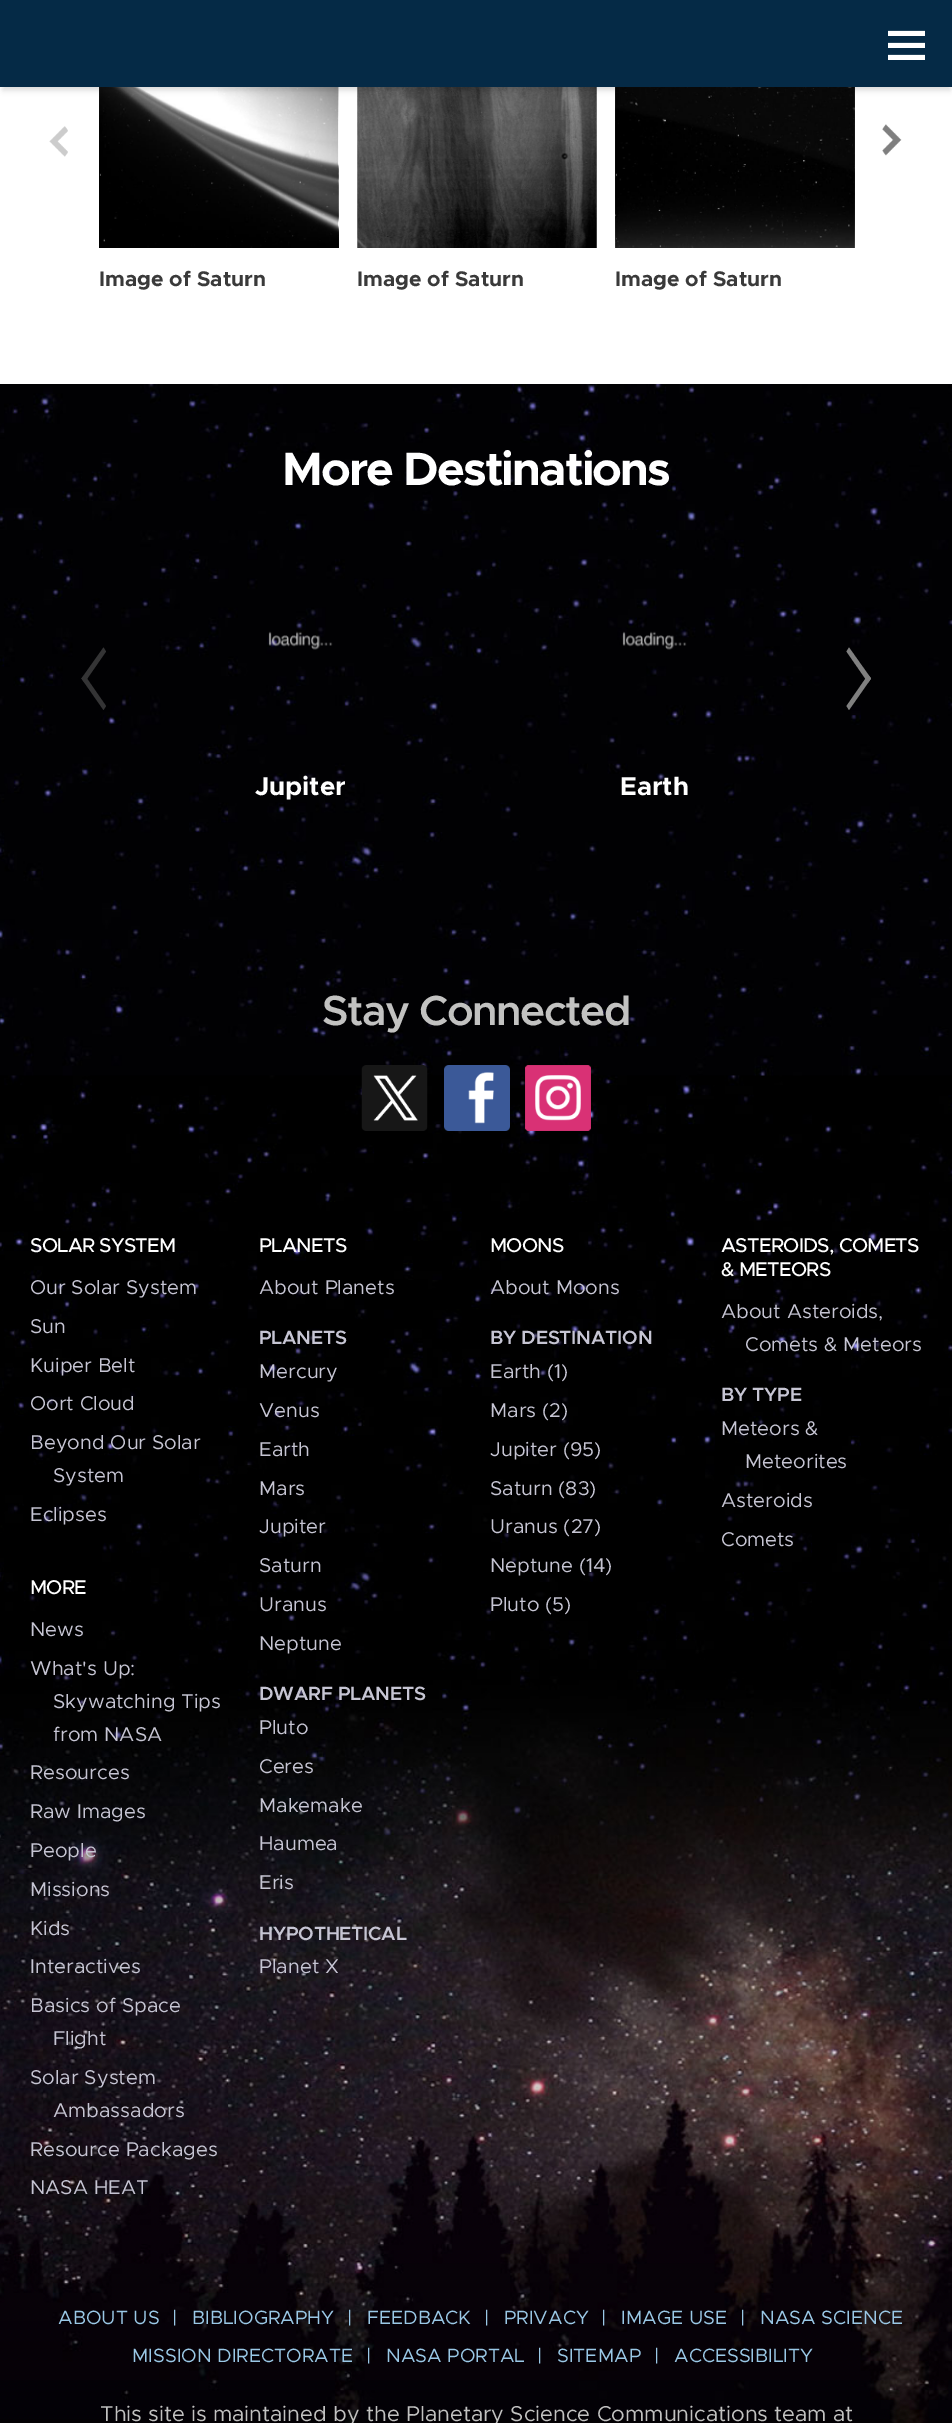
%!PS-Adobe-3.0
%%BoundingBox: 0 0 952 2423
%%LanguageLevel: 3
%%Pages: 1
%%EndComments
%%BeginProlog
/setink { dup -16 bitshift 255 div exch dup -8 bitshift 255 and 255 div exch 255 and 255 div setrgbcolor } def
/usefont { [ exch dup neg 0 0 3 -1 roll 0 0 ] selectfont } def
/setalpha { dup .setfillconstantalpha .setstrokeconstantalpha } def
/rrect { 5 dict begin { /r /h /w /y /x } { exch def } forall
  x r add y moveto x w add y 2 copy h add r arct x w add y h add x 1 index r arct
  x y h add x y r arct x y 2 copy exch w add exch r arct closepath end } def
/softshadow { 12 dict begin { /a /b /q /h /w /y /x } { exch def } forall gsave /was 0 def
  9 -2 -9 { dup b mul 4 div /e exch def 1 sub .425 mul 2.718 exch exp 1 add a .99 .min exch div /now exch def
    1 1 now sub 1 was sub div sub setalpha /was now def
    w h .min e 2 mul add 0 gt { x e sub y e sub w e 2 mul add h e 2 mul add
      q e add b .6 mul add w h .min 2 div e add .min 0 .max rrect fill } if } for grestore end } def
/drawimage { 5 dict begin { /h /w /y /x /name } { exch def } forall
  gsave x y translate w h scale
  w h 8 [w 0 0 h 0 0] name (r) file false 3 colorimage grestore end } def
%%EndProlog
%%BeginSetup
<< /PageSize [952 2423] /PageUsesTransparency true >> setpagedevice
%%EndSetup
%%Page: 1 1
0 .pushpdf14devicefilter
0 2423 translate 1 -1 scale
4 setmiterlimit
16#FFFFFF setink
0 0 952 2423 rectfill
(img4.raw) 99 87 240 161 drawimage
(img5.raw) 357 87 240 161 drawimage
(img6.raw) 615 87 240 161 drawimage
16#000000 setink
3 9 947 81 0 3 0.15 softshadow
16#052A46 setink
0 0 952 87 rectfill
(img1.raw) 888 30 37 30 drawimage
(img2.raw) 49 126 19 31 drawimage
(img3.raw) 882 124 20 32 drawimage
/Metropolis-Bold 21.25 usefont
16#3A3A3A setink
[
    [(Image of Saturn) 99 286]
    [(Image of Saturn) 357 286]
    [(Image of Saturn) 615 286]
] { aload pop moveto show } forall
(img7.raw) 0 384 952 2039 drawimage
/Metropolis-Bold 47 usefont
16#FFFFFF setink
282 485 moveto -1.9 0 (More Destinations) ashow
16#343435 setink
84.5 675 moveto 106 706 lineto 103.5 710 lineto 81.5 678.5 lineto closepath fill
103.5 647.5 moveto 106 651.5 lineto 84.5 682.5 lineto 81.5 678.5 lineto closepath fill
16#808080 setink
849 647.5 moveto 871 678.5 lineto 868 682.5 lineto 846.5 651.5 lineto closepath fill
868 675 moveto 871 678.5 lineto 849 710 lineto 846.5 706 lineto closepath fill
(img8.raw) 268 631 65 19 drawimage
/Metropolis-Bold 26 usefont
16#FFFFFF setink
255 795 moveto (Jupiter) show
(img9.raw) 622 631 65 19 drawimage
620 795 moveto (Earth) show
/Metropolis-SemiBold 42.25 usefont
16#C2C2C1 setink
322 1025 moveto -1.5 0 (Stay Connected) ashow
(img10.raw) 361 1065 67 66 drawimage
(img11.raw) 444 1065 66 66 drawimage
(img12.raw) 525 1065 66 66 drawimage
/Metropolis-Medium 20 usefont
16#FFFFFF setink
30 1252 moveto -0.75 0 (SOLAR SYSTEM) ashow
/Metropolis-Regular 20 usefont
16#C6C5D3 setink
[
    [(Our Solar System) 30 1294]
    [(Sun) 30 1333]
    [(Kuiper Belt) 30 1372]
    [(Oort Cloud) 30 1410]
    [(Beyond Our Solar) 30 1449]
    [(System) 53 1482]
    [(Eclipses) 30 1521]
] { aload pop moveto show } forall
/Metropolis-Medium 20 usefont
16#FFFFFF setink
259 1252 moveto -0.75 0 (PLANETS) ashow
/Metropolis-Regular 20 usefont
16#C6C5D3 setink
259 1294 moveto (About Planets) show
/Metropolis-SemiBold 19.25 usefont
259 1344 moveto -0.25 0 (PLANETS) ashow
/Metropolis-Regular 20 usefont
[
    [(Mercury) 259 1378]
    [(Venus) 259 1417]
    [(Earth) 259 1456]
    [(Mars) 259 1495]
    [(Jupiter) 259 1533]
    [(Saturn) 259 1572]
    [(Uranus) 259 1611]
    [(Neptune) 259 1650]
] { aload pop moveto show } forall
/Metropolis-SemiBold 19.25 usefont
259 1700 moveto -0.25 0 (DWARF PLANETS) ashow
/Metropolis-Regular 20 usefont
[
    [(Pluto) 259 1734]
    [(Ceres) 259 1773]
    [(Makemake) 259 1812]
    [(Haumea) 259 1850]
    [(Eris) 259 1889]
] { aload pop moveto show } forall
/Metropolis-SemiBold 19.25 usefont
259 1940 moveto -0.25 0 (HYPOTHETICAL) ashow
/Metropolis-Regular 20 usefont
259 1973 moveto (Planet X) show
/Metropolis-Medium 20 usefont
16#FFFFFF setink
490 1252 moveto -0.75 0 (MOONS) ashow
/Metropolis-Regular 20 usefont
16#C6C5D3 setink
490 1294 moveto (About Moons) show
/Metropolis-SemiBold 19.25 usefont
490 1344 moveto -0.25 0 (BY DESTINATION) ashow
/Metropolis-Regular 20 usefont
[
    [(Earth \(1\)) 490 1378]
    [(Mars \(2\)) 490 1417]
    [(Jupiter \(95\)) 490 1456]
    [(Saturn \(83\)) 490 1495]
    [(Uranus \(27\)) 490 1533]
    [(Neptune \(14\)) 490 1572]
    [(Pluto \(5\)) 490 1611]
] { aload pop moveto show } forall
/Metropolis-Medium 20 usefont
16#FFFFFF setink
721 1252 moveto -0.75 0 (ASTEROIDS, COMETS) ashow
721 1276 moveto -0.75 0 (& METEORS) ashow
/Metropolis-Regular 20 usefont
16#C6C5D3 setink
721 1318 moveto (About Asteroids,) show
745 1351 moveto (Comets & Meteors) show
/Metropolis-SemiBold 19.25 usefont
721 1401 moveto -0.25 0 (BY TYPE) ashow
/Metropolis-Regular 20 usefont
[
    [(Meteors &) 721 1435]
    [(Meteorites) 745 1468]
    [(Asteroids) 721 1507]
    [(Comets) 721 1546]
] { aload pop moveto show } forall
/Metropolis-Medium 20 usefont
16#FFFFFF setink
30 1594 moveto -0.75 0 (MORE) ashow
/Metropolis-Regular 20 usefont
16#C6C5D3 setink
[
    [(News) 30 1636]
    [(What's Up:) 30 1675]
    [(Skywatching Tips) 53 1708]
    [(from NASA) 53 1741]
    [(Resources) 30 1779]
    [(Raw Images) 30 1818]
    [(People) 30 1857]
    [(Missions) 30 1896]
    [(Kids) 30 1935]
    [(Interactives) 30 1973]
    [(Basics of Space) 30 2012]
    [(Flight) 53 2045]
    [(Solar System) 30 2084]
    [(Ambassadors) 53 2117]
    [(Resource Packages) 30 2156]
    [(NASA HEAT) 30 2194]
] { aload pop moveto show } forall
/Metropolis-Regular 19.25 usefont
16#9AC8E6 setink
[
    [(ABOUT US) 58 2324]
    [(|) 172 2324]
    [(BIBLIOGRAPHY) 192 2324]
    [(|) 347 2324]
    [(FEEDBACK) 367 2324]
    [(|) 484 2324]
    [(PRIVACY) 504 2324]
    [(|) 601 2324]
    [(IMAGE USE) 621 2324]
    [(|) 740 2324]
    [(NASA SCIENCE) 760 2324]
    [(MISSION DIRECTORATE) 132 2362]
    [(|) 366 2362]
    [(NASA PORTAL) 386 2362]
    [(|) 537 2362]
    [(SITEMAP) 557 2362]
    [(|) 654 2362]
    [(ACCESSIBILITY) 674 2362]
] { aload pop moveto show } forall
/Metropolis-Regular 21.6 usefont
16#C2C2C1 setink
100 2421 moveto (This site is maintained by the Planetary Science Communications team at) show
.poppdf14devicefilter showpage
%%EOF
